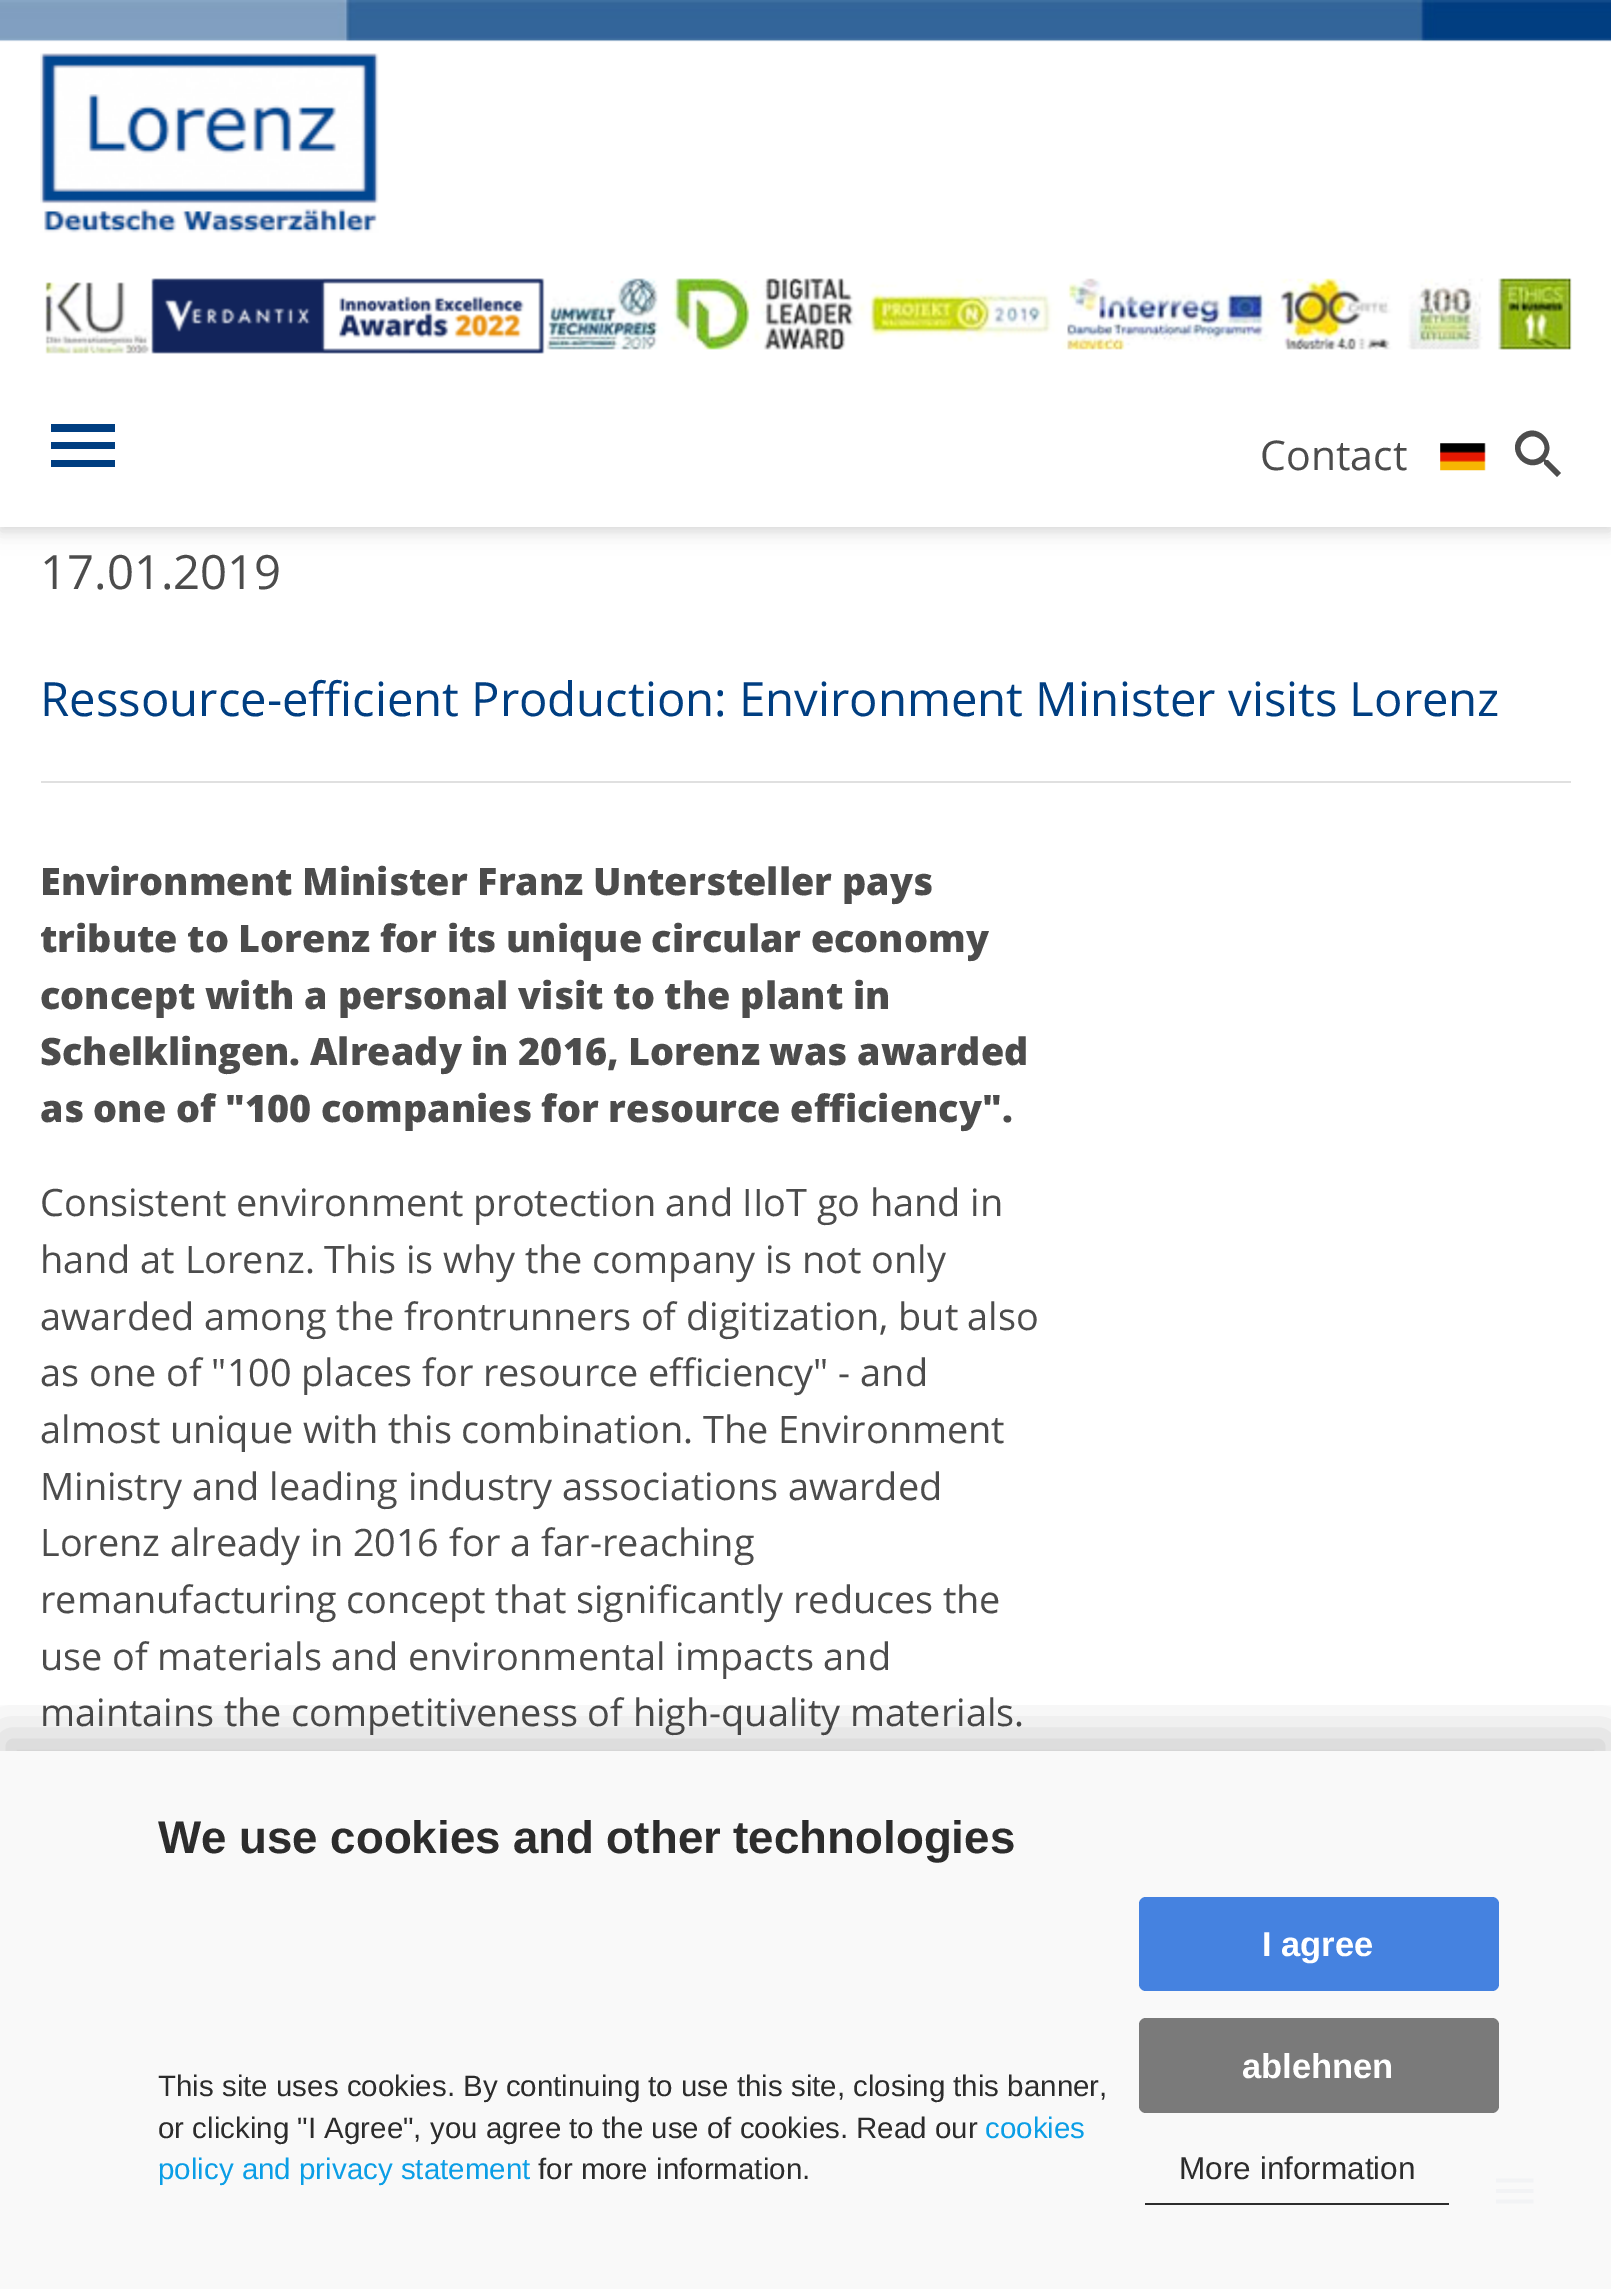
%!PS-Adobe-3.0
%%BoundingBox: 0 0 1611 2289
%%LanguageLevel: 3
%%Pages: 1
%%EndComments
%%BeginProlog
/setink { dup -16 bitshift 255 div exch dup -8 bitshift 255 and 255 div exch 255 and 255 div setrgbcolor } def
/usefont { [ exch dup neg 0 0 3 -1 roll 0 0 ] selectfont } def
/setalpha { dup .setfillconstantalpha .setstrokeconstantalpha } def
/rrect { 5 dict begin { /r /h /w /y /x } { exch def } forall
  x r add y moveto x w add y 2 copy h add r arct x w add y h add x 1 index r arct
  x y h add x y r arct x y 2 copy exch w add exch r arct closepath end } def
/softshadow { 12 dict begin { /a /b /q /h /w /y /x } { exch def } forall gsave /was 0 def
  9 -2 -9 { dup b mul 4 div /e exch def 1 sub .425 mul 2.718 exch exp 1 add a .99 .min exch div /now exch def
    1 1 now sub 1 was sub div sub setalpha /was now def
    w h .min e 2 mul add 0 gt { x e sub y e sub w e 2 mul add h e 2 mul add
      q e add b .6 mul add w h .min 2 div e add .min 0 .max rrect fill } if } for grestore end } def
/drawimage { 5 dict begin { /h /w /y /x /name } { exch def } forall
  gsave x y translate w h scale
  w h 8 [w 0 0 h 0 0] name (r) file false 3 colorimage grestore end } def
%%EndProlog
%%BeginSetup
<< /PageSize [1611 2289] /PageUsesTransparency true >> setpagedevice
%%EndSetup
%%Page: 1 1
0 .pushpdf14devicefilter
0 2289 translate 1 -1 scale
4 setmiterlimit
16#FFFFFF setink
0 0 1611 2289 rectfill
16#F9F9F9 setink
0 1751 1611 538 rectfill
16#000000 setink
0 5 1611 526 0 11 0.08 softshadow
0 5 1611 526 0 5.5 0.08 softshadow
16#FFFFFF setink
0 40 1611 487 rectfill
(img1.raw) 0 0 1611 42 drawimage
(img2.raw) 40 53 339 180 drawimage
(img3.raw) 45 278 1527 76 drawimage
16#003E81 setink
51 424 moveto 115 424 lineto 115 432 lineto 51 432 lineto closepath 51 449 moveto 51 442 lineto 115 442 lineto 115 449 lineto closepath 51 467 moveto 51 460 lineto 115 460 lineto 115 467 lineto closepath fill
/OpenSans-Regular 41 usefont
16#4C4C4C setink
1260 470 moveto (Contact) show
(img4.raw) 1440 443 46 28 drawimage
16#4D4D4D setink
1524 456 moveto 1535 467 1552 451 1541 440 curveto 1530 429 1513 445 1524 456 curveto closepath 1548 460 moveto 1561 473 lineto 1557 477 lineto 1544 464 lineto 1544 462 lineto 1544 461 lineto 1527 475 1505 451 1520 436 curveto 1536 420 1559 443 1545 459 curveto 1546 460 lineto closepath fill
/OpenSans-Regular 47.25 usefont
16#4C4C4C setink
40 589 moveto (17.01.2019) show
16#003E81 setink
40 716 moveto (Ressource-efficient Production: Environment Minister visits Lorenz) show
16#E0E0E0 setink
41 781 1530 2 rectfill
/OpenSans-ExtraBold 37.8 usefont
16#4C4C4C setink
40 895 moveto (Environment Minister Franz Untersteller pays) show
40 952 moveto -0.25 0 32 (tribute to Lorenz for its unique circular economy) widthshow
40 1009 moveto (concept with a personal visit to the plant in) show
40 1065 moveto -0.25 0 32 (Schelklingen. Already in 2016, Lorenz was awarded) widthshow
40 1122 moveto -0.25 0 32 (as one of "100 companies for resource efficiency".) widthshow
/OpenSans-Regular 37.8 usefont
40 1216 moveto -0.25 0 32 (Consistent environment protection and IIoT go hand in) widthshow
40 1273 moveto (hand at Lorenz. This is why the company is not only) show
40 1330 moveto -0.25 0 32 (awarded among the frontrunners of digitization, but also) widthshow
40 1386 moveto (as one of "100 places for resource efficiency" - and) show
40 1443 moveto -0.25 0 32 (almost unique with this combination. The Environment) widthshow
40 1500 moveto (Ministry and leading industry associations awarded) show
40 1556 moveto (Lorenz already in 2016 for a far-reaching) show
40 1613 moveto -0.25 0 32 (remanufacturing concept that significantly reduces the) widthshow
40 1670 moveto -0.25 0 32 (use of materials and environmental impacts and) widthshow
40 1726 moveto -0.25 0 32 (maintains the competitiveness of high-quality materials.) widthshow
16#F2F3F5 setink
1496 2178.5 moveto 1533.5 2178.5 lineto 1533.5 2182.5 lineto 1496 2182.5 lineto closepath 1496 2193 moveto 1496 2189 lineto 1533.5 2189 lineto 1533.5 2193 lineto closepath 1496 2203.5 moveto 1496 2199.5 lineto 1533.5 2199.5 lineto 1533.5 2203.5 lineto closepath fill
gsave
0 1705 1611 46 rectclip
16#000000 setink
0 1733 1611 540 0 22.5 0.19 softshadow
grestore
/LiberationSans-Bold 45.7 usefont
16#2C2C2C setink
158 1853 moveto -0.25 0 32 (We use cookies and other technologies) widthshow
/LiberationSans-Regular 29.5 usefont
158 2096 moveto (This site uses cookies. By continuing to use this site, closing this banner,) show
158 2138 moveto (or clicking "I Agree", you agree to the use of cookies. Read our) show
16#0B9EE6 setink
985 2138 moveto (cookies) show
158 2179 moveto (policy and privacy statement) show
16#2C2C2C setink
538 2179 moveto (for more information.) show
16#4582E0 setink
1139 1897 360 94 7 rrect fill
/LiberationSans-Bold 34.5 usefont
16#FFFFFF setink
1262 1956 moveto (I agree) show
16#7A7A7A setink
1139 2018 360 95 7 rrect fill
16#FFFFFF setink
1242 2078 moveto (ablehnen) show
16#2D2D2D setink
1145 2203 304 2 rectfill
/LiberationSans-Regular 31.5 usefont
16#2C2C2C setink
1179 2179 moveto (More information) show
.poppdf14devicefilter showpage
%%EOF
